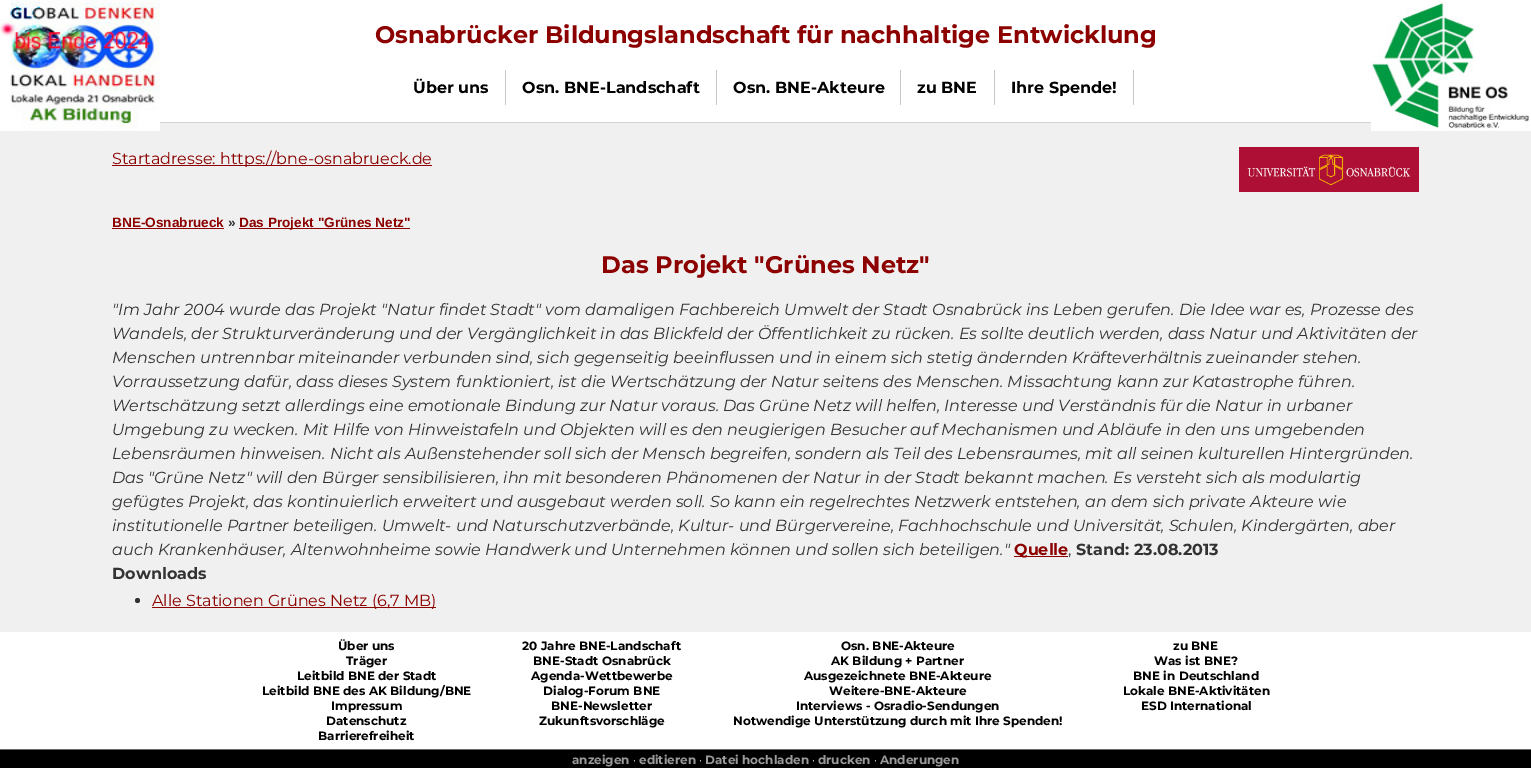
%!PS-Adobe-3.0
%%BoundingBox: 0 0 1531 768
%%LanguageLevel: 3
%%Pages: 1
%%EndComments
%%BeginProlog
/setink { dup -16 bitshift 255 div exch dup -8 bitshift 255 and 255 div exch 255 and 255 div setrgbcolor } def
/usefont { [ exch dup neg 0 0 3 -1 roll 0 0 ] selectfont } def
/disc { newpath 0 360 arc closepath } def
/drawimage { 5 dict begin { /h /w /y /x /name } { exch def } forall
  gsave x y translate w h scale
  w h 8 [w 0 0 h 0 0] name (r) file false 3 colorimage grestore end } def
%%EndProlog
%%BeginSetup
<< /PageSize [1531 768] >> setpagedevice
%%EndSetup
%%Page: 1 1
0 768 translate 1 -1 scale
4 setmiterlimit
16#FFFFFF setink
0 0 1531 768 rectfill
16#F0F0F0 setink
0 123 1531 509 rectfill
16#FFFFFF setink
0 129 160 2 rectfill
(img1.raw) 0 0 160 129 drawimage
/Montserrat-Bold 24 usefont
16#8C0000 setink
375 43 moveto (Osnabrücker Bildungslandschaft für nachhaltige Entwicklung) show
16#FFFFFF setink
1371 123 160 8 rectfill
(img2.raw) 1371 0 158 129 drawimage
16#C9C9C9 setink
505 70 1 35 rectfill
/Montserrat-Bold 16 usefont
16#000000 setink
413 93 moveto (Über uns) show
16#C9C9C9 setink
716 70 1 35 rectfill
16#000000 setink
522 93 moveto (Osn. BNE-Landschaft) show
16#C9C9C9 setink
900 70 1 35 rectfill
16#000000 setink
733 93 moveto (Osn. BNE-Akteure) show
16#C9C9C9 setink
994 70 1 35 rectfill
16#000000 setink
917 93 moveto (zu BNE) show
16#C9C9C9 setink
1133 70 1 35 rectfill
16#000000 setink
1011 93 moveto (Ihre Spende!) show
16#D3D3D3 setink
160 122 1211 1 rectfill
16#8C0000 setink
112 165 320 1 rectfill
/Montserrat-Regular 16 usefont
112 164 moveto (Startadresse: https://bne-osnabrueck.de) show
(img3.raw) 1239 147 180 45 drawimage
/LiberationSans-Bold 13.6 usefont
112 227 moveto (BNE-Osnabrueck) show
112 228 112 1 rectfill
16#333333 setink
228 227 moveto (») show
16#8C0000 setink
239 228 171 1 rectfill
239 227 moveto (Das Projekt "Grünes Netz") show
/Montserrat-Bold 24 usefont
601 273 moveto (Das Projekt "Grünes Netz") show
/Montserrat-Italic 16 usefont
16#333333 setink
[
    [("Im Jahr 2004 wurde das Projekt "Natur findet Stadt" vom damaligen Fachbereich Umwelt der Stadt Osnabrück ins Leben gerufen. Die Idee war es, Prozesse des) 112 315]
    [(Wandels, der Strukturveränderung und der Vergänglichkeit in das Blickfeld der Öffentlichkeit zu rücken. Es sollte deutlich werden, dass Natur und Aktivitäten der) 112 339]
    [(Menschen untrennbar miteinander verbunden sind, sich gegenseitig beeinflussen und in einem sich stetig ändernden Kräfteverhältnis zueinander stehen.) 112 363]
    [(Vorraussetzung dafür, dass dieses System funktioniert, ist die Wertschätzung der Natur seitens des Menschen. Missachtung kann zur Katastrophe führen.) 112 387]
    [(Wertschätzung setzt allerdings eine emotionale Bindung zur Natur voraus. Das Grüne Netz will helfen, Interesse und Verständnis für die Natur in urbaner) 112 411]
    [(Umgebung zu wecken. Mit Hilfe von Hinweistafeln und Objekten will es den neugierigen Besucher auf Mechanismen und Abläufe in den uns umgebenden) 112 435]
    [(Lebensräumen hinweisen. Nicht als Außenstehender soll sich der Mensch begreifen, sondern als Teil des Lebensraumes, mit all seinen kulturellen Hintergründen.) 112 459]
    [(Das "Grüne Netz" will den Bürger sensibilisieren, ihn mit besonderen Phänomenen der Natur in der Stadt bekannt machen. Es versteht sich als modulartig) 112 483]
    [(gefügtes Projekt, das kontinuierlich erweitert und ausgebaut werden soll. So kann ein regelrechtes Netzwerk entstehen, an dem sich private Akteure wie) 112 507]
    [(institutionelle Partner beteiligen. Umwelt- und Naturschutzverbände, Kultur- und Bürgervereine, Fachhochschule und Universität, Schulen, Kindergärten, aber) 112 531]
    [(auch Krankenhäuser, Altenwohnheime sowie Handwerk und Unternehmen können und sollen sich beteiligen.") 112 555]
] { aload pop moveto show } forall
16#8C0000 setink
1014 556 54 1 rectfill
/Montserrat-Bold 16 usefont
1014 555 moveto (Quelle) show
/Montserrat-Regular 16 usefont
16#333333 setink
1068 555 moveto (,) show
/Montserrat-Bold 16 usefont
1076 555 moveto (Stand: 23.08.2013) show
112 579 moveto (Downloads) show
137.5 600.5 2.5 disc fill
16#8C0000 setink
152 607 284 1 rectfill
/Montserrat-Regular 16 usefont
152 606 moveto (Alle Stationen Grünes Netz \(6,7 MB\)) show
16#000000 setink
0 750 1531 18 rectfill
16#696969 setink
0 749 1531 1 rectfill
/Montserrat-Bold 12 usefont
16#000000 setink
[
    [(Über uns) 338 650]
    [(Träger) 346 665]
    [(Leitbild BNE der Stadt) 297 680]
    [(Leitbild BNE des AK Bildung/BNE) 262 695]
    [(Impressum) 331 710]
    [(Datenschutz) 326 725]
    [(Barrierefreiheit) 318 740]
    [(20 Jahre BNE-Landschaft) 522 650]
    [(BNE-Stadt Osnabrück) 533 665]
    [(Agenda-Wettbewerbe) 531 680]
    [(Dialog-Forum BNE) 543 695]
    [(BNE-Newsletter) 551 710]
    [(Zukunftsvorschläge) 539 725]
    [(Osn. BNE-Akteure) 841 650]
    [(AK Bildung + Partner) 831 665]
    [(Ausgezeichnete BNE-Akteure) 804 680]
    [(Weitere-BNE-Akteure) 829 695]
    [(Interviews - Osradio-Sendungen) 796 710]
    [(Notwendige Unterstützung durch mit Ihre Spenden!) 733 725]
    [(zu BNE) 1173 650]
    [(Was ist BNE?) 1154 665]
    [(BNE in Deutschland) 1133 680]
    [(Lokale BNE-Aktivitäten) 1123 695]
    [(ESD International) 1141 710]
] { aload pop moveto show } forall
16#999999 setink
572 764 moveto (anzeigen) show
/Montserrat-Regular 12 usefont
16#FFFFFF setink
633 764 moveto (·) show
/Montserrat-Bold 12 usefont
16#999999 setink
639 764 moveto (editieren) show
/Montserrat-Regular 12 usefont
16#FFFFFF setink
699 764 moveto (·) show
/Montserrat-Bold 12 usefont
16#999999 setink
705 764 moveto (Datei hochladen) show
/Montserrat-Regular 12 usefont
16#FFFFFF setink
812 764 moveto (·) show
/Montserrat-Bold 12 usefont
16#999999 setink
818 764 moveto (drucken) show
/Montserrat-Regular 12 usefont
16#FFFFFF setink
874 764 moveto (·) show
/Montserrat-Bold 12 usefont
16#999999 setink
880 764 moveto (Anderungen) show
showpage
%%EOF
